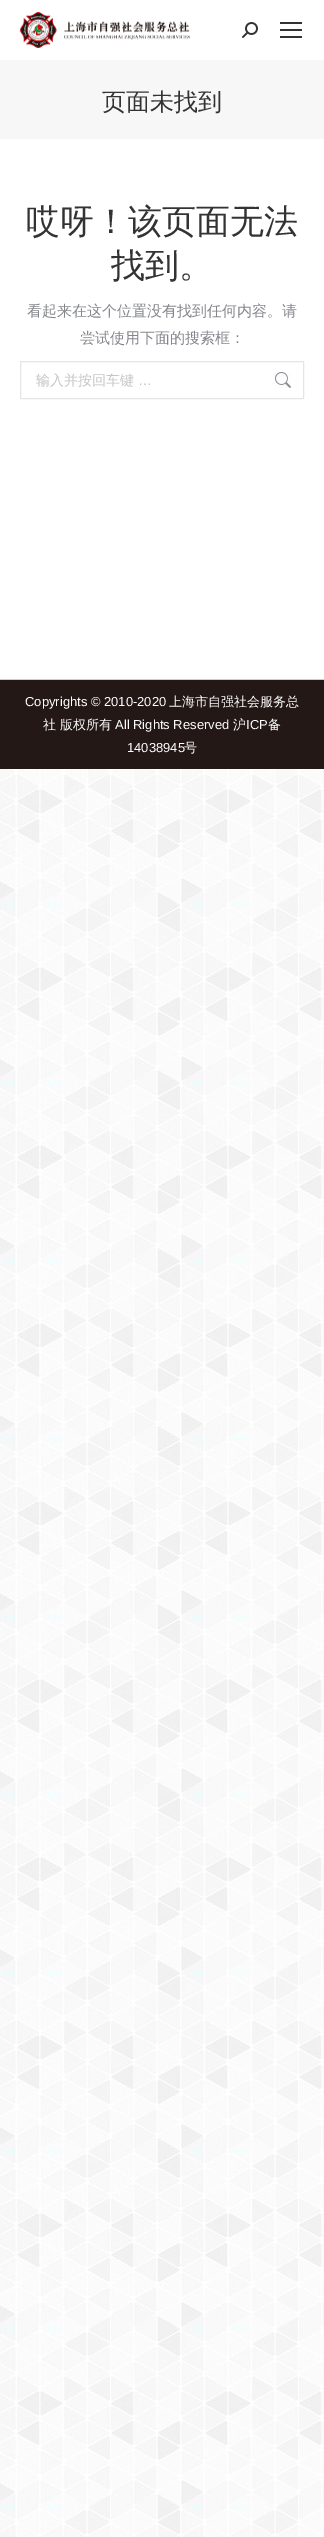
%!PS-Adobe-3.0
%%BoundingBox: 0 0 324 2537
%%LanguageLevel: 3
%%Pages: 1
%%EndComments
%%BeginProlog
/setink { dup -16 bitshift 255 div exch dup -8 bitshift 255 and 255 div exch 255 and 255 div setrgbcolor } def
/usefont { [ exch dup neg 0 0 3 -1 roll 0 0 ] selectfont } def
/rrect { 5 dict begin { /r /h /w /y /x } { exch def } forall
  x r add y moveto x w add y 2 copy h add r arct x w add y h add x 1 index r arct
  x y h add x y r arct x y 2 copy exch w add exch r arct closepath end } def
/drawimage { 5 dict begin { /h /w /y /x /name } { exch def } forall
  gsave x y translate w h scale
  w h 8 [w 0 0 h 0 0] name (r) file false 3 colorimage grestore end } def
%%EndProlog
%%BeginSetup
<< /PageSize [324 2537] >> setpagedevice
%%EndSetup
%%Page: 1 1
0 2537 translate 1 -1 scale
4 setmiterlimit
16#FFFFFF setink
0 0 324 2537 rectfill
(img1.raw) 0 769 324 1768 drawimage
(img2.raw) 20 12 170 36 drawimage
(img3.raw) 242 22 16 16 drawimage
[
    [280 22 22 2 16#333333]
    [280 29 22 2 16#333333]
    [280 36 22 2 16#333333]
    [0 60 324 79 16#F7F7F7]
] { aload pop setink rectfill } forall
/WenQuanYiZenHei-Medium 24 usefont
16#333333 setink
102 110 moveto (页面未找到) show
/WenQuanYiZenHei-Medium 34 usefont
26 233 moveto (哎呀！该页面无法) show
111 277 moveto (找到。) show
/WenQuanYiZenHei-Medium 15 usefont
16#85868C setink
27 316 moveto (看起来在这个位置没有找到任何内容。请) show
80 343 moveto (尝试使用下面的搜索框：) show
16#E5E5E5 setink
20.5 361.5 283 37 0.5 rrect stroke
/WenQuanYiZenHei-Medium 14 usefont
16#C4C5C9 setink
36 385 moveto (输入并按回车键) show
/LiberationSans-Regular 14 usefont
138 385 moveto (…) show
(img4.raw) 275 372 16 16 drawimage
16#CECDCD setink
0 679 324 1 rectfill
16#231815 setink
0 680 324 89 rectfill
/LiberationSans-Regular 13 usefont
16#FFFFFF setink
25 706 moveto (Copyrights © 2010-2020) show
/WenQuanYiZenHei-Medium 13 usefont
169 706 moveto (上海市自强社会服务总) show
43 729 moveto (社 版权所有) show
/LiberationSans-Regular 13 usefont
115 729 moveto (All Rights Reserved) show
/WenQuanYiZenHei-Medium 13 usefont
233 729 moveto (沪) show
/LiberationSans-Regular 13 usefont
246 729 moveto (ICP) show
/WenQuanYiZenHei-Medium 13 usefont
268 729 moveto (备) show
/LiberationSans-Regular 13 usefont
127 752 moveto (14038945) show
/WenQuanYiZenHei-Medium 13 usefont
184 752 moveto (号) show
showpage
%%EOF
